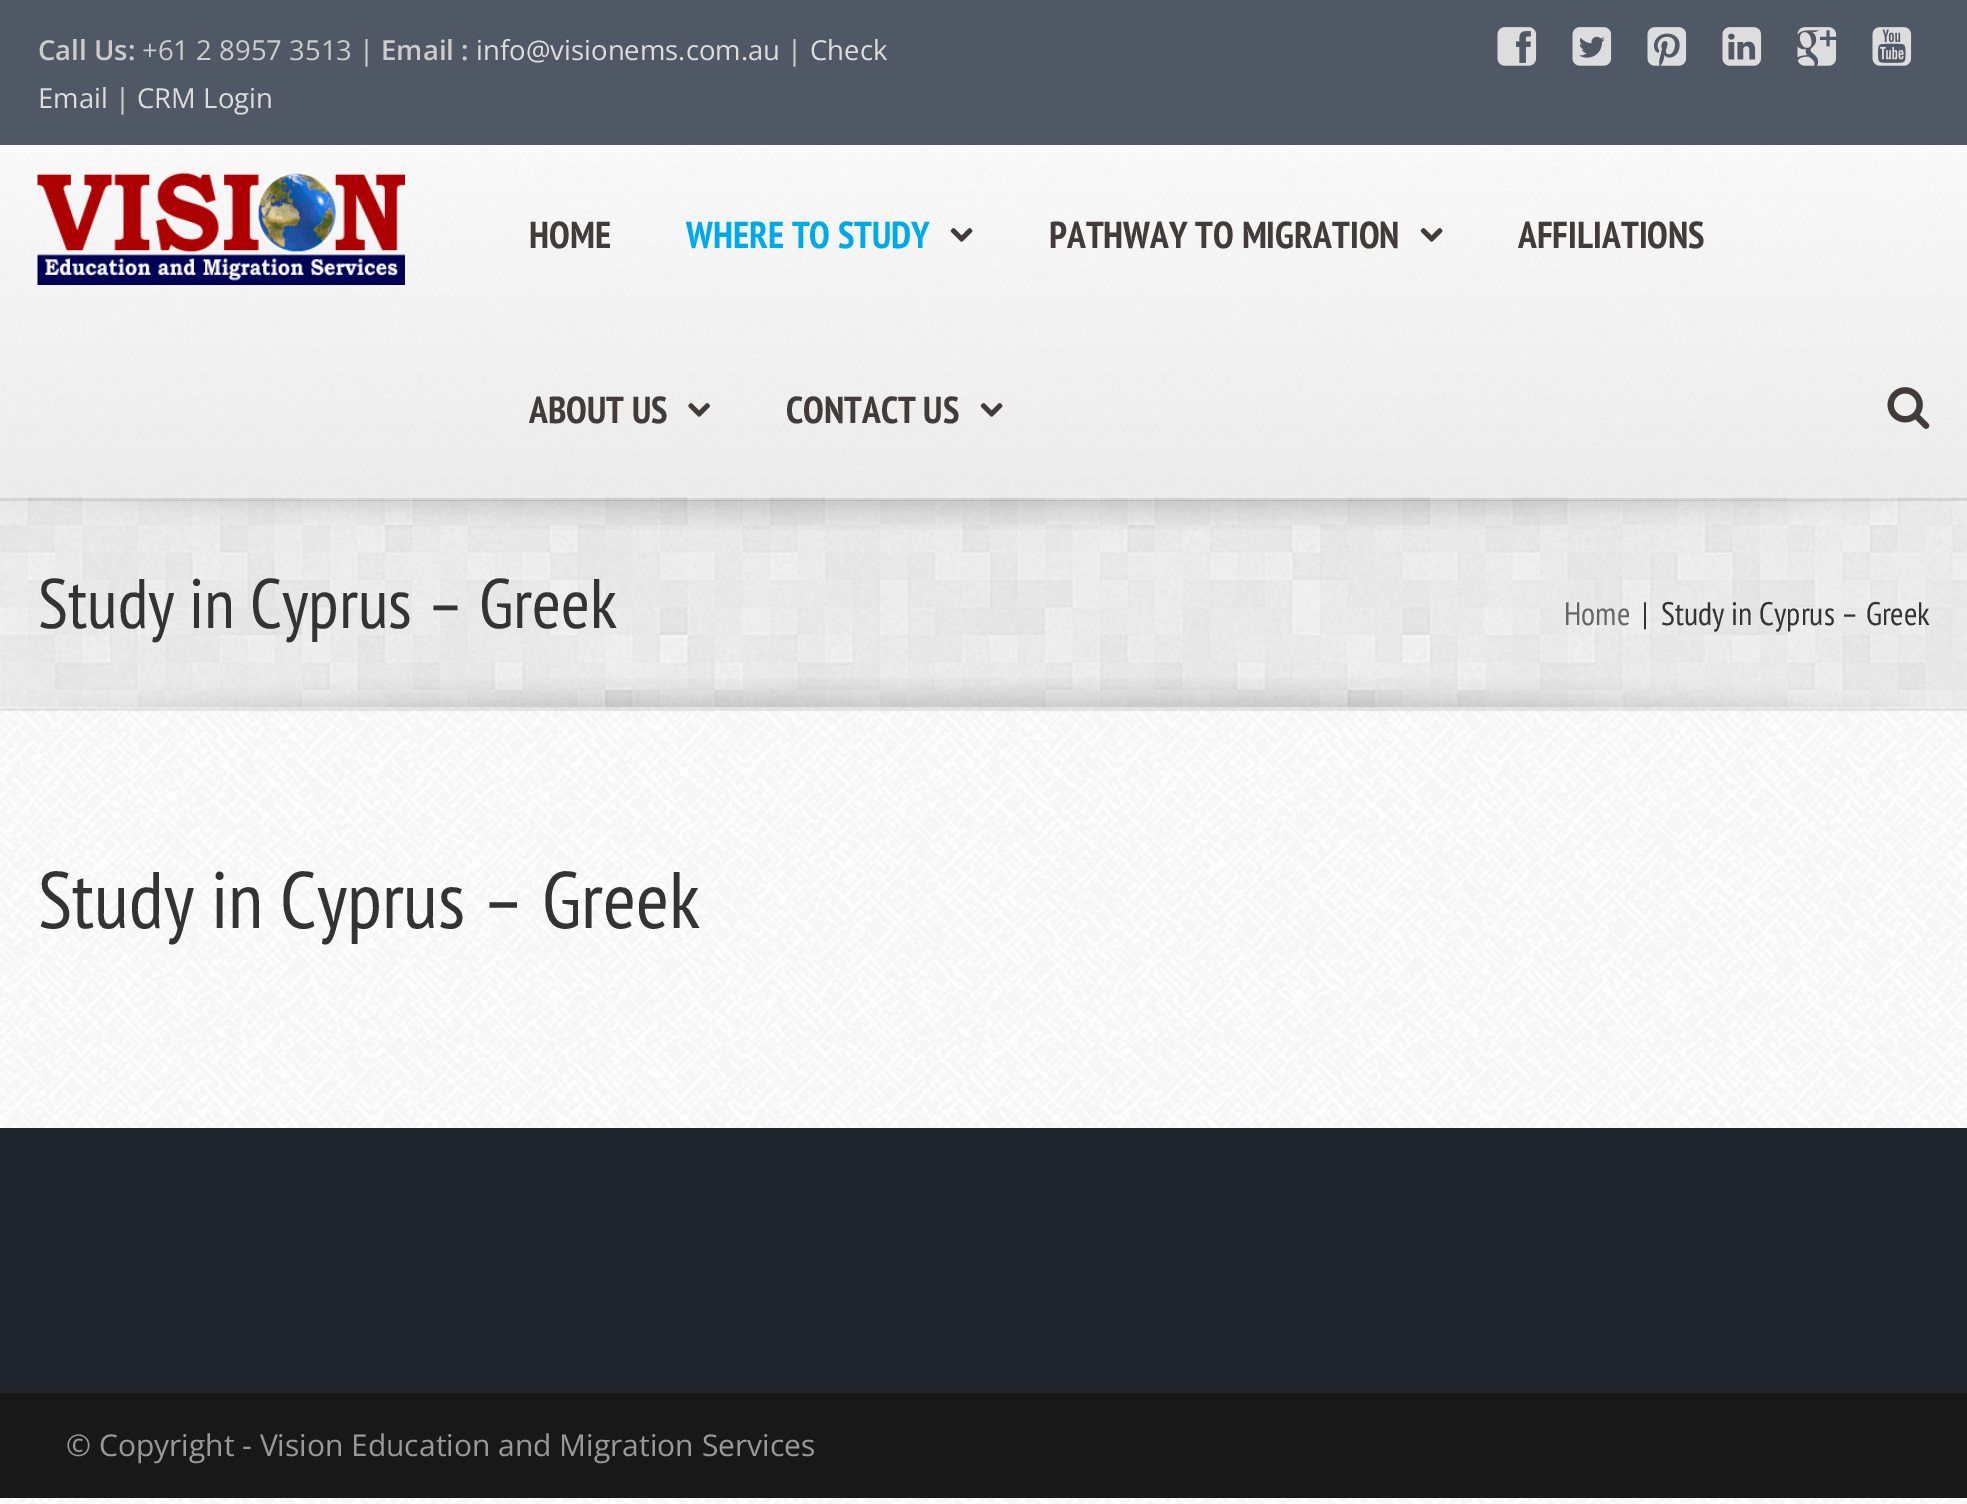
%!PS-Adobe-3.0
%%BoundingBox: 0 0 1967 1504
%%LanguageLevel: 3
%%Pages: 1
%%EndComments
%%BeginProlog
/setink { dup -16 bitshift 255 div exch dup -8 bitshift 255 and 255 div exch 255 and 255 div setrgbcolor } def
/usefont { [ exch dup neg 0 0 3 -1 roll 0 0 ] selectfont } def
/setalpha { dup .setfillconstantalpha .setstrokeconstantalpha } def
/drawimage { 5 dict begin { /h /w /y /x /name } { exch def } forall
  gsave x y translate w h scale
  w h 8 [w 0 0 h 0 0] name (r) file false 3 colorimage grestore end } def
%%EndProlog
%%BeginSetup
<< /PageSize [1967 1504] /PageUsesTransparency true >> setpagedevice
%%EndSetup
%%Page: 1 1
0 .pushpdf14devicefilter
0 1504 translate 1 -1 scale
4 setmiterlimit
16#FFFFFF setink
0 0 1967 1504 rectfill
(img1.raw) 0 148 1967 1356 drawimage
16#4F5864 setink
0 0 1967 145 rectfill
/OpenSans-SemiBold 27.5 usefont
16#CCCCCC setink
38 60 moveto (Call Us:) show
/OpenSans-Regular 27.5 usefont
142 60 moveto (+61 2 8957 3513 |) show
/OpenSans-SemiBold 27.5 usefont
381 60 moveto (Email :) show
/OpenSans-Regular 27.5 usefont
16#DDDDDD setink
476 60 moveto (info@visionems.com.au) show
16#CCCCCC setink
787 60 moveto (|) show
16#DDDDDD setink
810 60 moveto (Check) show
38 108 moveto (Email) show
16#CCCCCC setink
115 108 moveto (|) show
16#DDDDDD setink
137 108 moveto (CRM Login) show
(img2.raw) 1497 27 40 39 drawimage
(img3.raw) 1572 27 40 39 drawimage
(img4.raw) 1647 27 40 39 drawimage
(img5.raw) 1722 27 40 39 drawimage
(img6.raw) 1797 27 40 39 drawimage
(img7.raw) 1872 27 40 39 drawimage
16#F9F9F9 setink
0 145 1967 3 rectfill
(img8.raw) 37 172 368 113 drawimage
/PTSansNarrow-Bold 37.5 usefont
16#423B3B setink
529 248 moveto (HOME) show
16#00AAE8 setink
686 248 moveto (WHERE TO STUDY) show
(img9.raw) 950 228 23 14 drawimage
16#423B3B setink
1049 248 moveto (PATHWAY TO MIGRATION) show
(img10.raw) 1420 228 23 14 drawimage
1518 248 moveto (AFFILIATIONS) show
529 423 moveto (ABOUT US) show
(img11.raw) 688 403 22 14 drawimage
786 423 moveto (CONTACT US) show
(img12.raw) 980 403 23 14 drawimage
(img13.raw) 1887 387 43 42 drawimage
(img14.raw) 0 497 1967 211 drawimage
0.09 setalpha
16#000000 setink
0 498 1967 3 rectfill
1 setalpha
(img15.raw) 53 500 1857 30 drawimage
/PTSansNarrow-Regular 70 usefont
16#333333 setink
38 628 moveto (Study in Cyprus – Greek) show
/PTSansNarrow-Regular 32.5 usefont
16#666666 setink
1564 625 moveto (Home) show
16#333333 setink
1642 625 moveto (|) show
1661 625 moveto (Study in Cyprus – Greek) show
0.09 setalpha
16#000000 setink
0 708 1967 3 rectfill
1 setalpha
(img16.raw) 58 678 1851 30 drawimage
/PTSansNarrow-Regular 80 usefont
16#333333 setink
38 928 moveto (Study in Cyprus – Greek) show
16#21262E setink
0 1128 1967 265 rectfill
16#181818 setink
0 1393 1967 105 rectfill
/OpenSans-Regular 30 usefont
16#999999 setink
66 1456 moveto (© Copyright - Vision Education and Migration Services) show
.poppdf14devicefilter showpage
%%EOF
